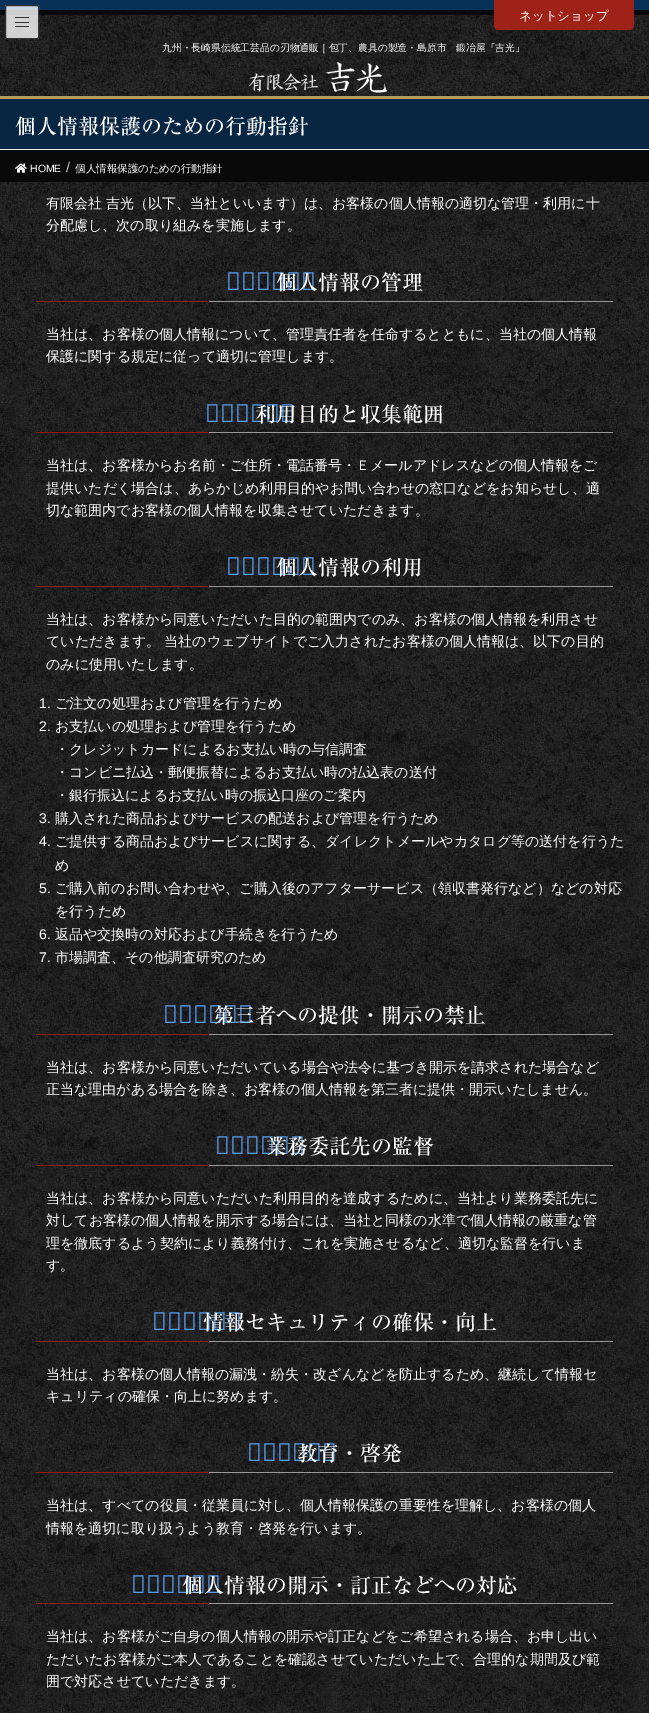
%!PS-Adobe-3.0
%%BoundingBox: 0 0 649 1713
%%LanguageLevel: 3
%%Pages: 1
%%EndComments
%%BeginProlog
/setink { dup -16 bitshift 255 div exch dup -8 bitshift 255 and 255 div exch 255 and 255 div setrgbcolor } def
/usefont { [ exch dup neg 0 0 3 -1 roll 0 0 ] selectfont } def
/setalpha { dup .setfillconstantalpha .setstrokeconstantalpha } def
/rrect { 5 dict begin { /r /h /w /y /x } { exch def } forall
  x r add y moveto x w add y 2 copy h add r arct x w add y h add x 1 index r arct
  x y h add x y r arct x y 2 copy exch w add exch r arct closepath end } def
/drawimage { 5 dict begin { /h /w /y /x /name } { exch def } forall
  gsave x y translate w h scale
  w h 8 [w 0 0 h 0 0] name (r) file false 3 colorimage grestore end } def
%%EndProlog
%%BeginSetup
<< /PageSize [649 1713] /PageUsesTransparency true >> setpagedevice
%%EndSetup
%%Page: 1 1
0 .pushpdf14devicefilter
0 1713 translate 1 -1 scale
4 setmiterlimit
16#090909 setink
0 0 649 1713 rectfill
16#083159 setink
0 0 649 10 rectfill
(img1.raw) 0 15 649 81 drawimage
0.8 setalpha
16#FFFFFF setink
5 5 34 34 2 rrect fill
1 setalpha
[
    [15 17 14 1 16#333333]
    [15 22 14 1 16#333333]
    [15 26 14 1 16#333333]
] { aload pop setink rectfill } forall
5.5 5.5 33 33 1.5 rrect stroke
16#B79B5B setink
0 96 649 3 rectfill
16#9F2218 setink
494 0 moveto 634 0 lineto 634 25 lineto 634 28 632 30 629 30 curveto 499 30 lineto 496 30 494 28 494 25 curveto closepath fill
/WenQuanYiZenHei-Medium 12.5 usefont
16#FFFFFF setink
519 20 moveto (ネットショップ) show
/WenQuanYiZenHei-Medium 9.8 usefont
162 51 moveto (九州・長崎県伝統工芸品の刃物通販｜包丁、農具の製造・島原市　鍛冶屋「吉光」) show
(img2.raw) 248 62 140 31 drawimage
16#082541 setink
0 99 649 50 rectfill
16#EEEEEE setink
0 149 649 1 rectfill
/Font-Regular 21 usefont
16#FFFFFF setink
15 134 moveto (個人情報保護のための行動指針) show
(img3.raw) 15 163 12 10 drawimage
/LiberationSans-Regular 10.5 usefont
30 172 moveto (HOME) show
/LiberationSans-Regular 14 usefont
16#CCCCCC setink
66 172 moveto (/) show
/WenQuanYiZenHei-Medium 10.5 usefont
16#FFFFFF setink
75 172 moveto (個人情報保護のための行動指針) show
(img4.raw) 0 182 649 1531 drawimage
/WenQuanYiZenHei-Medium 14 usefont
46 208 moveto (有限会社 吉光（以下、当社といいます）は、お客様の個人情報の適切な管理・利用に十) show
46 230 moveto (分配慮し、次の取り組みを実施します。) show
16#999999 setink
209 301 404 1 rectfill
/NotoSans-Medium 25 usefont
16#569FF7 setink
226 290 moveto (１．) show
/Font-Regular 21 usefont
16#FFFFFF setink
276 290 moveto (個人情報の管理) show
16#97170A setink
36 301 173 1 rectfill
/WenQuanYiZenHei-Medium 14 usefont
16#FFFFFF setink
46 339 moveto (当社は、お客様の個人情報について、管理責任者を任命するとともに、当社の個人情報) show
46 361 moveto (保護に関する規定に従って適切に管理します。) show
16#999999 setink
209 432 404 1 rectfill
/NotoSans-Medium 25 usefont
16#569FF7 setink
205 422 moveto (２．) show
/Font-Regular 21 usefont
16#FFFFFF setink
255 422 moveto (利用目的と収集範囲) show
16#97170A setink
36 432 173 1 rectfill
/WenQuanYiZenHei-Medium 14 usefont
16#FFFFFF setink
[
    [(当社は、お客様からお名前・ご住所・電話番号・Ｅメールアドレスなどの個人情報をご) 46 470]
    [(提供いただく場合は、あらかじめ利用目的やお問い合わせの窓口などをお知らせし、適) 46 493]
    [(切な範囲内でお客様の個人情報を収集させていただきます。) 46 515]
] { aload pop moveto show } forall
16#999999 setink
209 586 404 1 rectfill
/NotoSans-Medium 25 usefont
16#569FF7 setink
226 575 moveto (３．) show
/Font-Regular 21 usefont
16#FFFFFF setink
276 575 moveto (個人情報の利用) show
16#97170A setink
36 586 173 1 rectfill
/WenQuanYiZenHei-Medium 14 usefont
16#FFFFFF setink
[
    [(当社は、お客様から同意いただいた目的の範囲内でのみ、お客様の個人情報を利用させ) 46 624]
    [(ていただきます。 当社のウェブサイトでご入力されたお客様の個人情報は、以下の目的) 46 646]
    [(のみに使用いたします。) 46 669]
] { aload pop moveto show } forall
/LiberationSans-Regular 14 usefont
39 708 moveto (1.) show
/WenQuanYiZenHei-Medium 14 usefont
55 708 moveto (ご注文の処理および管理を行うため) show
/LiberationSans-Regular 14 usefont
39 731 moveto (2.) show
/WenQuanYiZenHei-Medium 14 usefont
[
    [(お支払いの処理および管理を行うため) 55 731]
    [(・クレジットカードによるお支払い時の与信調査) 55 754]
    [(・コンビニ払込・郵便振替によるお支払い時の払込表の送付) 55 777]
    [(・銀行振込によるお支払い時の振込口座のご案内) 55 800]
] { aload pop moveto show } forall
/LiberationSans-Regular 14 usefont
39 823 moveto (3.) show
/WenQuanYiZenHei-Medium 14 usefont
55 823 moveto (購入された商品およびサービスの配送および管理を行うため) show
/LiberationSans-Regular 14 usefont
39 846 moveto (4.) show
/WenQuanYiZenHei-Medium 14 usefont
55 846 moveto (ご提供する商品およびサービスに関する、ダイレクトメールやカタログ等の送付を行うた) show
55 870 moveto (め) show
/LiberationSans-Regular 14 usefont
39 893 moveto (5.) show
/WenQuanYiZenHei-Medium 14 usefont
55 893 moveto (ご購入前のお問い合わせや、ご購入後のアフターサービス（領収書発行など）などの対応) show
55 916 moveto (を行うため) show
/LiberationSans-Regular 14 usefont
39 939 moveto (6.) show
/WenQuanYiZenHei-Medium 14 usefont
55 939 moveto (返品や交換時の対応および手続きを行うため) show
/LiberationSans-Regular 14 usefont
39 962 moveto (7.) show
/WenQuanYiZenHei-Medium 14 usefont
55 962 moveto (市場調査、その他調査研究のため) show
16#999999 setink
209 1034 404 1 rectfill
/NotoSans-Medium 25 usefont
16#569FF7 setink
163 1023 moveto (４．) show
/Font-Regular 21 usefont
16#FFFFFF setink
213 1023 moveto (第三者への提供・開示の禁止) show
16#97170A setink
36 1034 173 1 rectfill
/WenQuanYiZenHei-Medium 14 usefont
16#FFFFFF setink
46 1072 moveto (当社は、お客様から同意いただいている場合や法令に基づき開示を請求された場合など) show
46 1094 moveto (正当な理由がある場合を除き、お客様の個人情報を第三者に提供・開示いたしません。) show
16#999999 setink
209 1165 404 1 rectfill
/NotoSans-Medium 25 usefont
16#569FF7 setink
215 1154 moveto (５．) show
/Font-Regular 21 usefont
16#FFFFFF setink
266 1154 moveto (業務委託先の監督) show
16#97170A setink
36 1165 173 1 rectfill
/WenQuanYiZenHei-Medium 14 usefont
16#FFFFFF setink
[
    [(当社は、お客様から同意いただいた利用目的を達成するために、当社より業務委託先に) 46 1203]
    [(対してお客様の個人情報を開示する場合には、当社と同様の水準で個人情報の厳重な管) 46 1225]
    [(理を徹底するよう契約により義務付け、これを実施させるなど、適切な監督を行いま) 46 1248]
    [(す。) 46 1270]
] { aload pop moveto show } forall
16#999999 setink
209 1341 404 1 rectfill
/NotoSans-Medium 25 usefont
16#569FF7 setink
152 1330 moveto (６．) show
/Font-Regular 21 usefont
16#FFFFFF setink
203 1330 moveto (情報セキュリティの確保・向上) show
16#97170A setink
36 1341 173 1 rectfill
/WenQuanYiZenHei-Medium 14 usefont
16#FFFFFF setink
46 1379 moveto (当社は、お客様の個人情報の漏洩・紛失・改ざんなどを防止するため、継続して情報セ) show
46 1401 moveto (キュリティの確保・向上に努めます。) show
16#999999 setink
209 1472 404 1 rectfill
/NotoSans-Medium 25 usefont
16#569FF7 setink
247 1461 moveto (７．) show
/Font-Regular 21 usefont
16#FFFFFF setink
297 1461 moveto (教育・啓発) show
16#97170A setink
36 1472 173 1 rectfill
/WenQuanYiZenHei-Medium 14 usefont
16#FFFFFF setink
46 1510 moveto (当社は、すべての役員・従業員に対し、個人情報保護の重要性を理解し、お客様の個人) show
46 1533 moveto (情報を適切に取り扱うよう教育・啓発を行います。) show
16#999999 setink
209 1603 404 1 rectfill
/NotoSans-Medium 25 usefont
16#569FF7 setink
131 1593 moveto (８．) show
/Font-Regular 21 usefont
16#FFFFFF setink
182 1593 moveto (個人情報の開示・訂正などへの対応) show
16#97170A setink
36 1603 173 1 rectfill
/WenQuanYiZenHei-Medium 14 usefont
16#FFFFFF setink
[
    [(当社は、お客様がご自身の個人情報の開示や訂正などをご希望される場合、お申し出い) 46 1641]
    [(ただいたお客様がご本人であることを確認させていただいた上で、合理的な期間及び範) 46 1664]
    [(囲で対応させていただきます。) 46 1686]
] { aload pop moveto show } forall
.poppdf14devicefilter showpage
%%EOF
